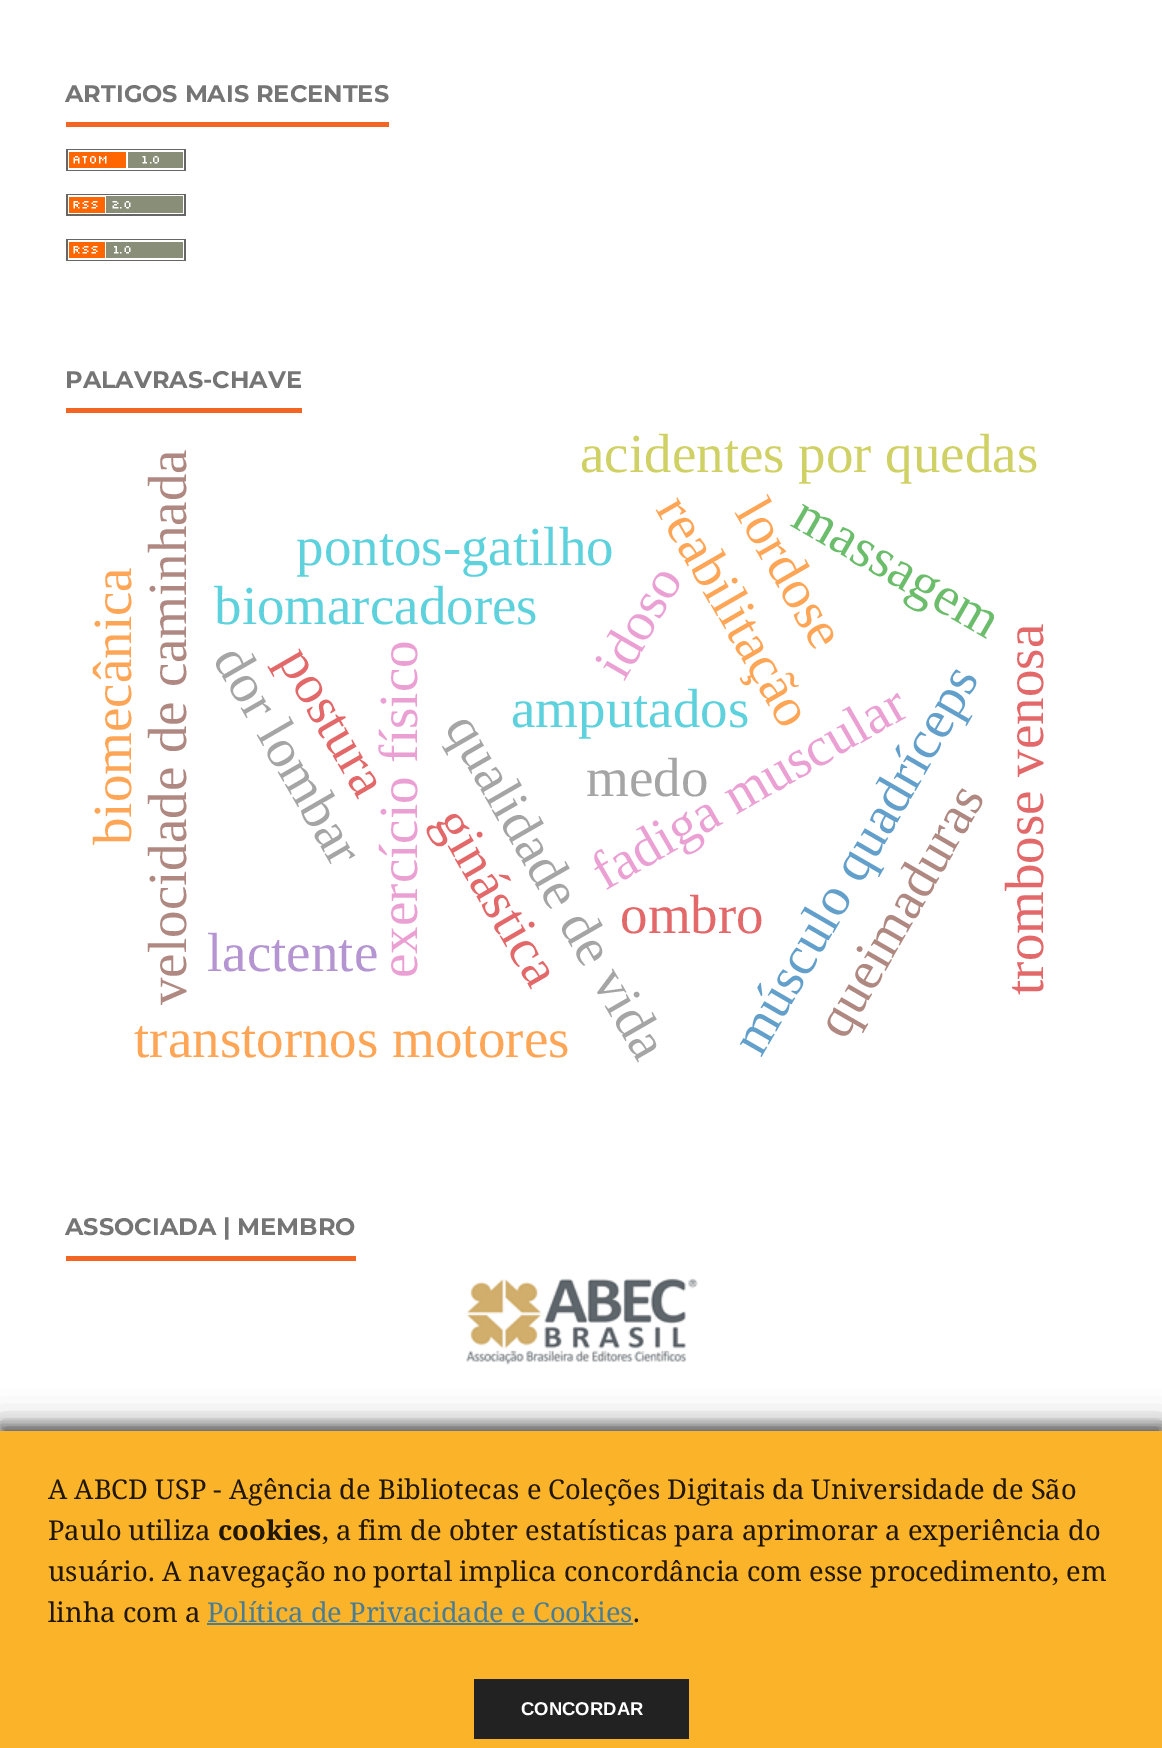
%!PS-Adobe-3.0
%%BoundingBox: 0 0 1162 1748
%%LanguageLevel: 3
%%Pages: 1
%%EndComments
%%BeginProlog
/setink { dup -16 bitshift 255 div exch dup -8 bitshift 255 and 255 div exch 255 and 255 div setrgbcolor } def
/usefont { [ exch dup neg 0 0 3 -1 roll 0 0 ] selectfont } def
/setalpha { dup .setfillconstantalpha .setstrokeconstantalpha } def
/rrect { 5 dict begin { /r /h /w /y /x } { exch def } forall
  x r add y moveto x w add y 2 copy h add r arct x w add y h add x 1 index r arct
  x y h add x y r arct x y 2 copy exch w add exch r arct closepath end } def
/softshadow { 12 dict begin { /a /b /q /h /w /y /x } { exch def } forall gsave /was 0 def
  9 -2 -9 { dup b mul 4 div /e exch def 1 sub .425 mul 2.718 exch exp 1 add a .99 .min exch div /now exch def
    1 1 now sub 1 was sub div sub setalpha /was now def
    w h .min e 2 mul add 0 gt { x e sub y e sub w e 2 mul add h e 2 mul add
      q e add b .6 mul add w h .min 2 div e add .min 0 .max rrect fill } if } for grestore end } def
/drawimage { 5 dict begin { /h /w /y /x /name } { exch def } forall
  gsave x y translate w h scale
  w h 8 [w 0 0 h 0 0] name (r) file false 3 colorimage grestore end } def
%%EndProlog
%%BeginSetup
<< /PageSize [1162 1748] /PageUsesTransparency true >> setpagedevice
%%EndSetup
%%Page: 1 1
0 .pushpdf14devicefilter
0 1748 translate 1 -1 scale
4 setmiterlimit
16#FFFFFF setink
0 0 1162 1748 rectfill
16#F26522 setink
66 122 323 5 rectfill
/Montserrat-Bold 24 usefont
16#757575 setink
65 102 moveto (ARTIGOS MAIS RECENTES) show
(img1.raw) 66 149 120 22 drawimage
(img2.raw) 66 194 120 22 drawimage
(img3.raw) 66 239 120 22 drawimage
16#F26522 setink
66 408 236 5 rectfill
16#757575 setink
65 388 moveto (PALAVRAS-CHAVE) show
/LiberationSerif-Regular 55 usefont
16#AF8981 setink
gsave 186 1005 translate -90 rotate 0 0 moveto (velocidade de caminhada) show grestore
16#D0D164 setink
580 472 moveto (acidentes por quedas) show
16#5DD2DD setink
511 727 moveto (amputados) show
16#FFA556 setink
gsave 655 509 translate 60 rotate 0 0 moveto (reabilitação) show grestore
gsave 734 512 translate 60 rotate 0 0 moveto (lordose) show grestore
16#5DD2DD setink
296 565 moveto (pontos-gatilho) show
16#6BBD6B setink
gsave 789 525 translate 30 rotate 0 0 moveto (massagem) show grestore
16#FFA556 setink
gsave 131 845 translate -90 rotate 0 0 moveto (biomecânica) show grestore
16#5DD2DD setink
214 624 moveto (biomarcadores) show
16#EBA0D4 setink
gsave 624 682 translate -60 rotate 0 0 moveto (idoso) show grestore
16#A5A5A5 setink
gsave 212 659 translate 60 rotate 0 0 moveto (dor lombar) show grestore
16#E26869 setink
gsave 277 660 translate 60 rotate 0 0 moveto (postura) show grestore
16#EBA0D4 setink
gsave 417 978 translate -90 rotate 0 0 moveto (exercício físico) show grestore
16#E26869 setink
gsave 1043 995 translate -90 rotate 0 0 moveto (trombose venosa) show grestore
16#A5A5A5 setink
gsave 444 727 translate 60 rotate 0 0 moveto (qualidade de vida) show grestore
16#EBA0D4 setink
gsave 605 891 translate -30 rotate 0 0 moveto (fadiga muscular) show grestore
16#62A0CB setink
gsave 761 1058 translate -60 rotate 0 0 moveto (músculo quadríceps) show grestore
16#A5A5A5 setink
586 796 moveto (medo) show
16#E26869 setink
gsave 433 821 translate 60 rotate 0 0 moveto (ginástica) show grestore
620 933 moveto (ombro) show
16#AF8981 setink
gsave 845 1041 translate -60 rotate 0 0 moveto (queimaduras) show grestore
16#B495D1 setink
207 971 moveto (lactente) show
16#FFA556 setink
134 1057 moveto (transtornos motores) show
16#F26522 setink
66 1256 290 5 rectfill
/Montserrat-Bold 24 usefont
16#757575 setink
65 1235 moveto (ASSOCIADA | MEMBRO) show
(img4.raw) 466 1278 232 87 drawimage
16#000000 setink
0 1422 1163 318 0 15 0.3 softshadow
0 1425 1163 318 0 6 0.5 softshadow
16#FBB42A setink
0 1431 1162 317 rectfill
/NotoSerif-Regular 27.3 usefont
16#211705 setink
48 1499 moveto (A ABCD USP - Agência de Bibliotecas e Coleções Digitais da Universidade de São) show
48 1540 moveto (Paulo utiliza) show
/NotoSerif-Bold 27.3 usefont
218 1540 moveto (cookies) show
/NotoSerif-Regular 27.3 usefont
[
    [(, a fim de obter estatísticas para aprimorar a experiência do) 322 1540]
    [(usuário. A navegação no portal implica concordância com esse procedimento, em) 48 1581]
    [(linha com a) 48 1622]
] { aload pop moveto show } forall
16#4B7D92 setink
207 1622 moveto (Política de Privacidade e Cookies) show
207 1623 426 2 rectfill
16#211705 setink
633 1622 moveto (.) show
16#222222 setink
474 1679 215 60 rectfill
/LiberationSans-Bold 18.5 usefont
16#FFFFFF setink
521 1715 moveto (CONCORDAR) show
.poppdf14devicefilter showpage
%%EOF
